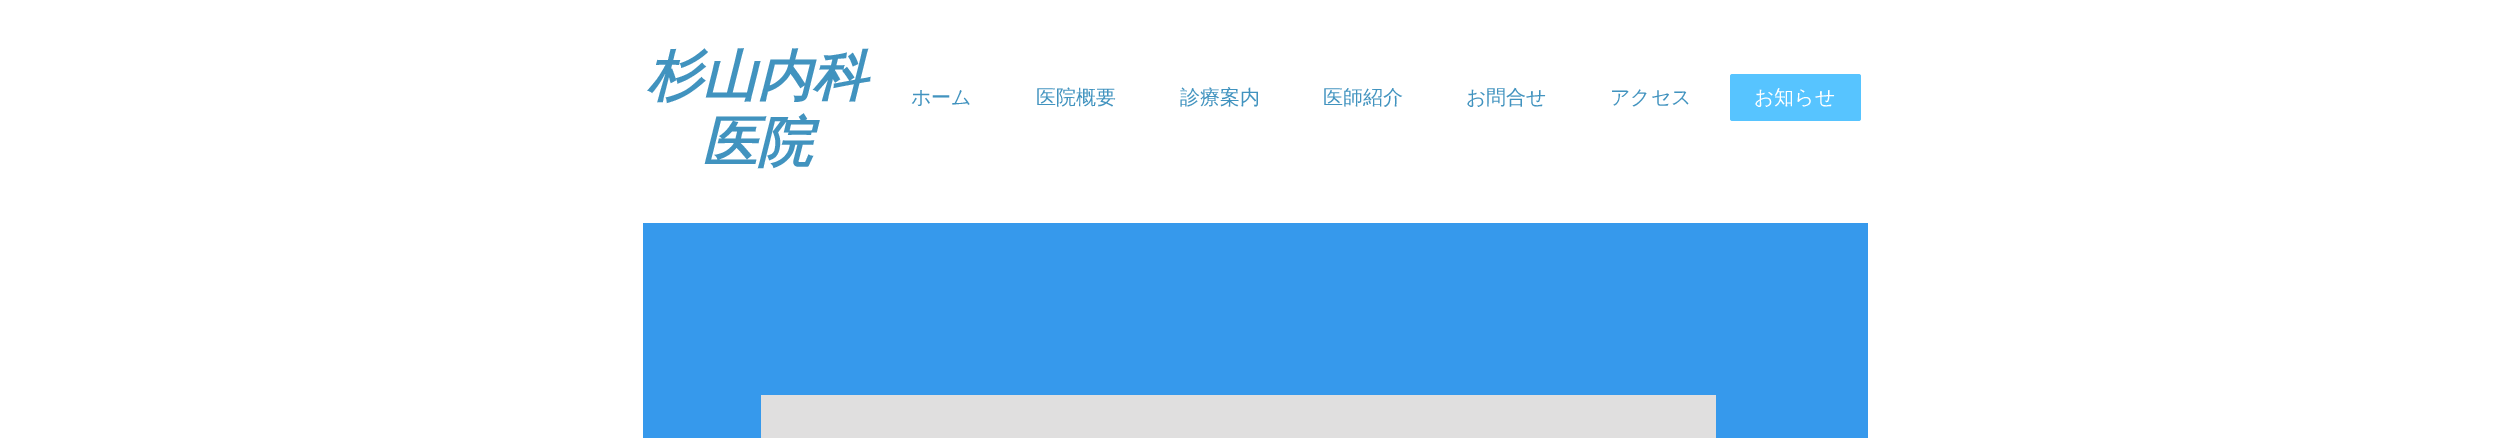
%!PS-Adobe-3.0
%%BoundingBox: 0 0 2508 438
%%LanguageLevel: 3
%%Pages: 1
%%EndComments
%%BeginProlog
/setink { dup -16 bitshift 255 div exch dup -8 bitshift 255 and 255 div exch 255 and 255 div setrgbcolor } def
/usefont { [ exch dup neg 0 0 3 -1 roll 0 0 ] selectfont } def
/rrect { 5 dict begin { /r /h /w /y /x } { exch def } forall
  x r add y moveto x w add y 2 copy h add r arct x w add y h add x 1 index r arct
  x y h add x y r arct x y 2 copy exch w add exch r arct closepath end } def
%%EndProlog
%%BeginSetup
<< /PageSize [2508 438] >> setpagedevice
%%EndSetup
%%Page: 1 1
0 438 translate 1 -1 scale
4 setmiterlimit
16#FFFFFF setink
0 0 2508 438 rectfill
/WenQuanYiZenHei-BoldItalic 55 usefont
16#4193BF setink
647 95 moveto (杉山内科) show
702 161 moveto (医院) show
/WenQuanYiZenHei-Medium 20 usefont
[
    [(ホーム) 911 104]
    [(医院概要) 1036 104]
    [(診療案内) 1180 104]
    [(医師紹介) 1323 104]
    [(お問合せ) 1466 104]
    [(アクセス) 1610 104]
] { aload pop moveto show } forall
16#57C4FF setink
1730 74 131 47 2.5 rrect fill
16#FFFFFF setink
1754 104 moveto (お知らせ) show
16#3699EC setink
643 223 1225 215 rectfill
16#E0DFDF setink
761 395 955 43 rectfill
showpage
%%EOF
